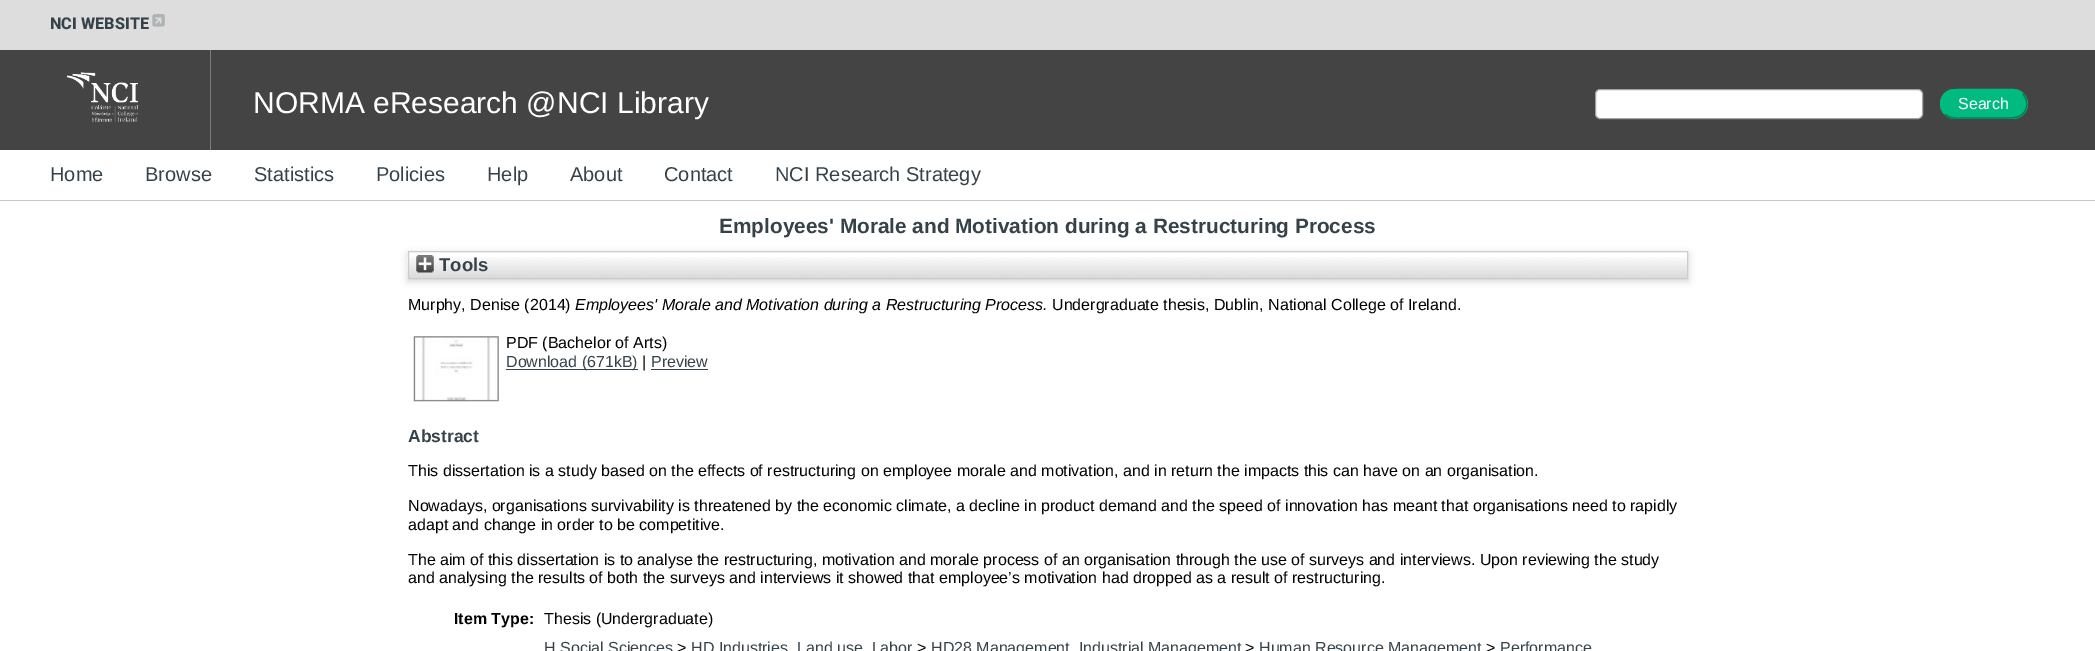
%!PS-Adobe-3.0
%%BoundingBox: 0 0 2095 651
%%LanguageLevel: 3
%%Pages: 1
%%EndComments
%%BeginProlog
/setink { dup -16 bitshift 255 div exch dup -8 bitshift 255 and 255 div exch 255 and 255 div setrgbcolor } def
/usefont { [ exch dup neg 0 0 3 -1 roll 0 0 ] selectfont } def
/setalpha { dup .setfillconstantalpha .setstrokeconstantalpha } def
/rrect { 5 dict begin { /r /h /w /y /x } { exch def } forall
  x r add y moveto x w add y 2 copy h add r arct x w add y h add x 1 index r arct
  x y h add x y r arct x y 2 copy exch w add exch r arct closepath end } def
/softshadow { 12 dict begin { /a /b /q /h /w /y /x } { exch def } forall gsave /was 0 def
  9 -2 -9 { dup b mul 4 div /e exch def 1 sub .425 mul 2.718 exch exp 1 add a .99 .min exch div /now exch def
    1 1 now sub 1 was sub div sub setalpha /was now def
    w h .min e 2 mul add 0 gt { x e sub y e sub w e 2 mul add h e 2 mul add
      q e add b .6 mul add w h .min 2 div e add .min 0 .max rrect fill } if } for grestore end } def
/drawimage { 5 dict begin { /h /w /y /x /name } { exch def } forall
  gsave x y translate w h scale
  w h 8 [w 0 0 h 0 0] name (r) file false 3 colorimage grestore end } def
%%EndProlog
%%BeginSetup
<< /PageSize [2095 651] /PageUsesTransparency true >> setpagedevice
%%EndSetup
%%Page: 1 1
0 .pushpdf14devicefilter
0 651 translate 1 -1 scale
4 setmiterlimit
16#FFFFFF setink
0 0 2095 651 rectfill
16#DDDDDD setink
0 0 2095 50 rectfill
/Roboto-ExtraBold 16.25 usefont
16#36424A setink
50 29 moveto (NCI WEBSITE) show
(img1.raw) 152 14 13 13 drawimage
16#444444 setink
0 50 2095 100 rectfill
(img2.raw) 66 72 72 50 drawimage
16#7C7C7C setink
210 50 1 100 rectfill
/LiberationSans-Regular 30 usefont
16#FFFFFF setink
253 113 moveto (NORMA eResearch @NCI Library) show
1595.5 89.5 327 29 4.5 rrect gsave fill grestore
16#A3A3A3 setink
stroke
16#01BA7F setink
1940 89 88 30 15 rrect fill
16#017C55 setink
1.2 setlinewidth
2022.5 93.5 moveto 2026 97 2027.5 102 2026.5 106.5 curveto 2024 119 2013 118 2003 118 curveto 1964.5 118 lineto 1957.5 118 1950 119.5 1945 114 curveto stroke
16#01BA7F setink
1945 114 moveto 1941.5 110.5 1940 105.5 1941 101 curveto 1943.5 88.5 1954.5 89.5 1964.5 89.5 curveto 2003 89.5 lineto 2010 89.5 2017.5 88 2022.5 93.5 curveto stroke
/LiberationSans-Regular 16 usefont
16#FFFFFF setink
1958 109 moveto (Search) show
16#C3C6C9 setink
0 200 2095 1 rectfill
/LiberationSans-Regular 20 usefont
16#36424A setink
[
    [(Home) 50 181]
    [(Browse) 145 181]
    [(Statistics) 254 181]
    [(Policies) 376 181]
    [(Help) 487 181]
    [(About) 570 181]
    [(Contact) 664 181]
    [(NCI Research Strategy) 775 181]
] { aload pop moveto show } forall
/LiberationSans-Bold 20.8 usefont
719 233 moveto (Employees' Morale and Motivation during a Restructuring Process) show
16#646464 setink
408 254 1280 27 0 4 0.3 softshadow
16#FFFFFF setink
409 252 1278 5 rectfill
(img3.raw) 407 257 1280 22 drawimage
16#CCCCCC setink
1 setlinewidth
408.5 251.5 1279 27 rectstroke
(img4.raw) 416 255 18 18 drawimage
/LiberationSans-Bold 18.5 usefont
16#36424A setink
439 271 moveto (Tools) show
/LiberationSans-Regular 16 usefont
16#000000 setink
408 310 moveto (Murphy, Denise \(2014\)) show
/LiberationSans-Italic 16 usefont
575 310 moveto (Employees' Morale and Motivation during a Restructuring Process.) show
/LiberationSans-Regular 16 usefont
1052 310 moveto (Undergraduate thesis, Dublin, National College of Ireland.) show
(img5.raw) 413 336 86 66 drawimage
506 348 moveto (PDF \(Bachelor of Arts\)) show
16#36424A setink
506 369 132 1 rectfill
506 367 moveto (Download \(671kB\)) show
16#000000 setink
642 367 moveto (|) show
16#36424A setink
651 367 moveto (Preview) show
651 369 57 1 rectfill
/LiberationSans-Bold 17.5 usefont
408 442 moveto (Abstract) show
/LiberationSans-Regular 16 usefont
16#000000 setink
[
    [(This dissertation is a study based on the effects of restructuring on employee morale and motivation, and in return the impacts this can have on an organisation.) 408 476]
    [(Nowadays, organisations survivability is threatened by the economic climate, a decline in product demand and the speed of innovation has meant that organisations need to rapidly) 408 511]
    [(adapt and change in order to be competitive.) 408 530]
    [(The aim of this dissertation is to analyse the restructuring, motivation and morale process of an organisation through the use of surveys and interviews. Upon reviewing the study) 408 565]
    [(and analysing the results of both the surveys and interviews it showed that employee’s motivation had dropped as a result of restructuring.) 408 583]
] { aload pop moveto show } forall
/LiberationSans-Bold 16 usefont
454 624 moveto (Item Type:) show
/LiberationSans-Regular 16 usefont
544 624 moveto (Thesis \(Undergraduate\)) show
16#36424A setink
544 653 moveto (H Social Sciences) show
16#000000 setink
677 653 moveto (>) show
16#36424A setink
691 653 moveto (HD Industries. Land use. Labor) show
16#000000 setink
917 653 moveto (>) show
16#36424A setink
931 653 moveto (HD28 Management. Industrial Management) show
16#000000 setink
1245 653 moveto (>) show
16#36424A setink
1259 653 moveto (Human Resource Management) show
16#000000 setink
1486 653 moveto (>) show
16#36424A setink
1500 653 moveto (Performance) show
.poppdf14devicefilter showpage
%%EOF
